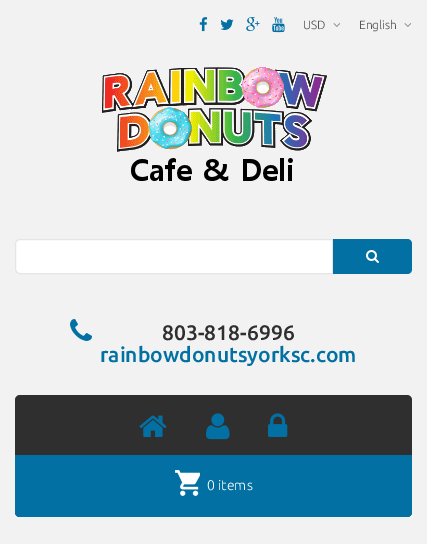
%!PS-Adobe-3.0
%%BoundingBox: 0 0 427 544
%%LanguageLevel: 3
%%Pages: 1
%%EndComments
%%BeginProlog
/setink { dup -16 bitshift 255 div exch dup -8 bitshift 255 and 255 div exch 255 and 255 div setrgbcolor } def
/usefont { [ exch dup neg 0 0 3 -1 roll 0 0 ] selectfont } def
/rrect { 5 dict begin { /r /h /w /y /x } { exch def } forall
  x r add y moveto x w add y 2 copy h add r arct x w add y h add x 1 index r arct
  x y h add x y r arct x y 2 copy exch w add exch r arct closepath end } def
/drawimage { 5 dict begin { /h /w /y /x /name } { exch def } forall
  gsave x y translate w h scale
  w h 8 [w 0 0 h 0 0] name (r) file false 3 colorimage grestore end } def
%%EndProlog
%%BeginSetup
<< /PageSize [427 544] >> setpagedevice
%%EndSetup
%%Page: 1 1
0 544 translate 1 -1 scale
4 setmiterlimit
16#F2F2F2 setink
0 0 427 544 rectfill
(img1.raw) 199 17 9 15 drawimage
(img2.raw) 220 19 14 11 drawimage
(img3.raw) 246 17 14 15 drawimage
(img4.raw) 272 17 13 16 drawimage
/Ubuntu-Light 12 usefont
16#555555 setink
303 29 moveto (USD) show
(img5.raw) 333 23 8 4 drawimage
359 29 moveto (English) show
(img5.raw) 404 23 8 4 drawimage
(img6.raw) 102 67 225 114 drawimage
16#FFFFFF setink
20 239.5 moveto 332.5 239.5 lineto 332.5 273.5 lineto 20 273.5 lineto 17.5 273.5 15.5 271.5 15.5 269 curveto 15.5 244 lineto 15.5 241.5 17.5 239.5 20 239.5 curveto closepath gsave fill grestore
16#E5E5E5 setink
stroke
16#0270A3 setink
333 239 moveto 407 239 lineto 410 239 412 241 412 244 curveto 412 269 lineto 412 272 410 274 407 274 curveto 333 274 lineto closepath fill
(img7.raw) 366 250 13 13 drawimage
(img8.raw) 70 319 22 22 drawimage
/Ubuntu-Medium 21 usefont
16#2F2F2F setink
162 340 moveto (803-818-6996) show
16#0270A3 setink
100 362 moveto (rainbowdonutsyorksc.com) show
16#2F2F2F setink
15 395 397 122 5 rrect fill
(img9.raw) 139 415 28 22 drawimage
(img10.raw) 206 413 24 27 drawimage
(img11.raw) 268 413 20 24 drawimage
16#0270A3 setink
15 455 moveto 412 455 lineto 412 512 lineto 412 515 410 517 407 517 curveto 20 517 lineto 17 517 15 515 15 512 curveto closepath fill
(img12.raw) 175 470 25 26 drawimage
/Ubuntu-Light 14 usefont
16#FFFFFF setink
207 490 moveto (0 items) show
showpage
%%EOF
